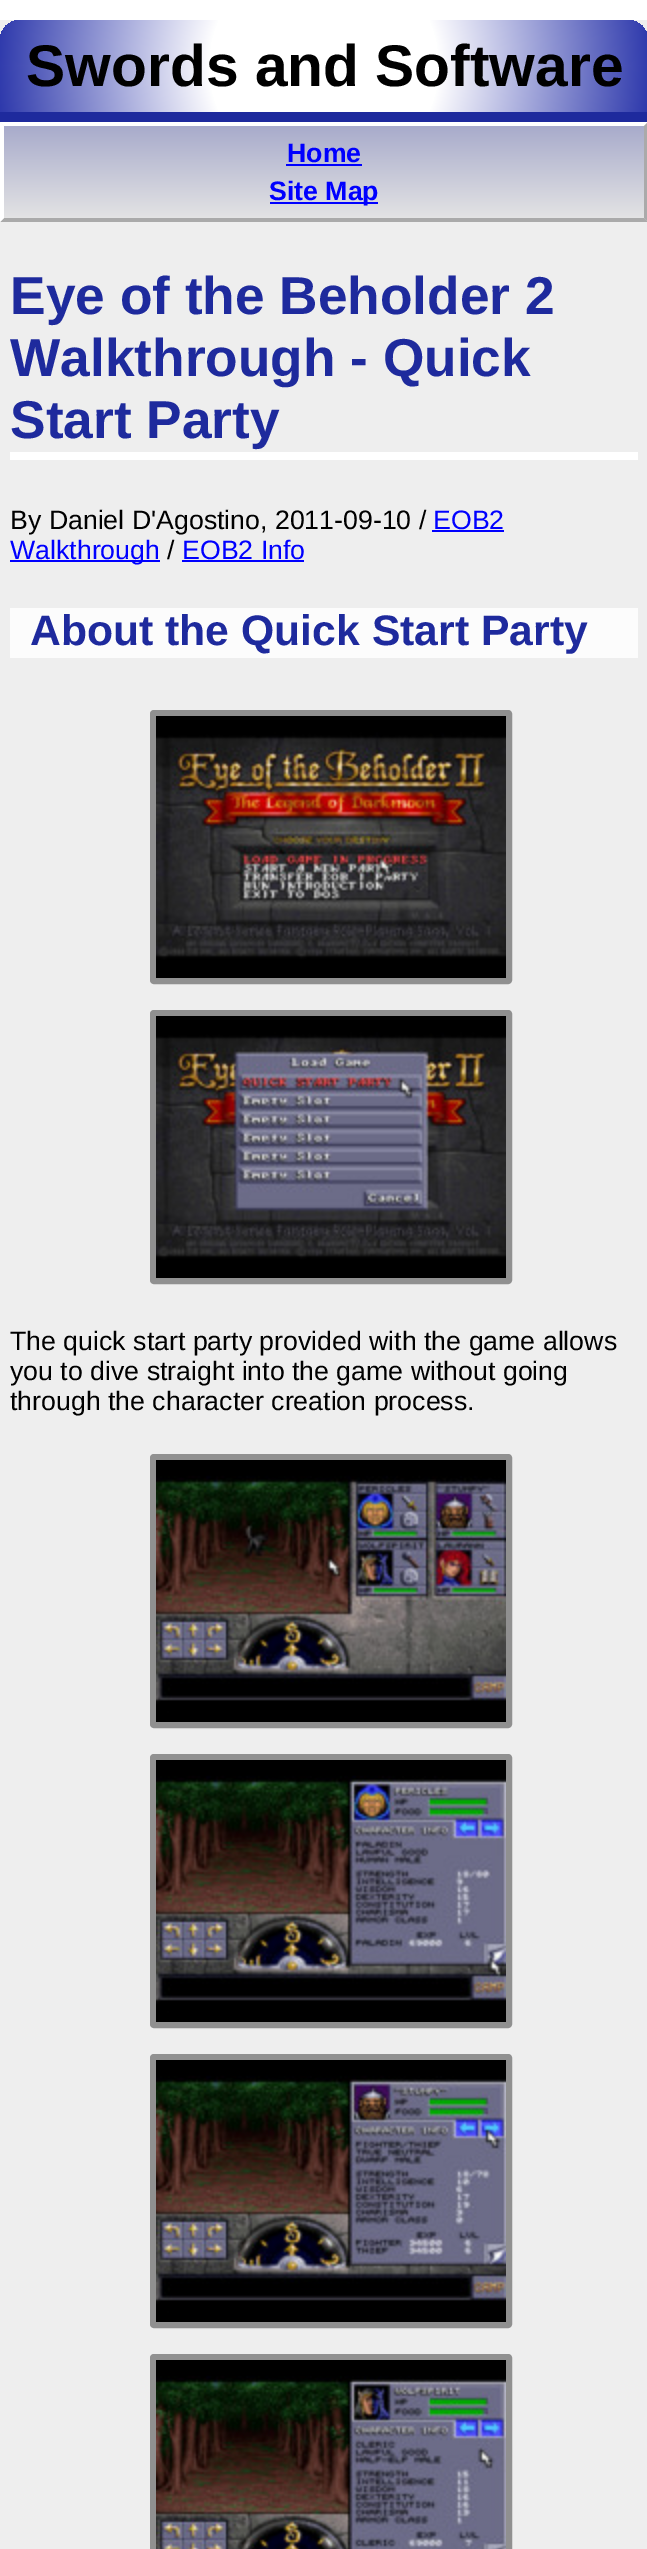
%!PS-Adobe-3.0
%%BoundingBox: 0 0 647 2549
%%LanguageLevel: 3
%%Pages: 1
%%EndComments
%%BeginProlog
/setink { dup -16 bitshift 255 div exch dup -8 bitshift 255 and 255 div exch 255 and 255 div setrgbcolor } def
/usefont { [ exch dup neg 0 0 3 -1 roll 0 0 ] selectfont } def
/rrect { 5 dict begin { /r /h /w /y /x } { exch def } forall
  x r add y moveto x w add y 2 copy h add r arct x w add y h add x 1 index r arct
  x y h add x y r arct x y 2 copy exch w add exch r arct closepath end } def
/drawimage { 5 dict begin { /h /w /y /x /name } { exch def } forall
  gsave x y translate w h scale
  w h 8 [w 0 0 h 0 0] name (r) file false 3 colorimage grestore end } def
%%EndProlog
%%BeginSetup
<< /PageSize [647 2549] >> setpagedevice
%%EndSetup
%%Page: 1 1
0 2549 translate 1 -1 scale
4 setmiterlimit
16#FFFFFF setink
0 0 647 2549 rectfill
16#EEEEEE setink
0 20 647 2529 rectfill
gsave 20 20 moveto 628 20 lineto 639 20 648 29 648 40 curveto 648 112 lineto 0 112 lineto 0 40 lineto 0 29 9 20 20 20 curveto closepath clip newpath 324 66 translate 327 327 scale
<< /ShadingType 3 /ColorSpace /DeviceRGB /Coords [0 0 0 0 0 1] /Extend [true true] /Function << /FunctionType 3 /Domain [0 1] /Functions [<< /FunctionType 2 /Domain [0 1] /C0 [1 1 1] /C1 [1 1 1] /N 1 >> << /FunctionType 2 /Domain [0 1] /C0 [1 1 1] /C1 [0.18 0.224 0.675] /N 1 >>] /Bounds [0.35] /Encode [0 1 0 1] >> >> shfill grestore
16#1E2A9D setink
0 112 647 10 rectfill
/LiberationSans-Bold 58.75 usefont
16#000000 setink
26 86 moveto (Swords and Software) show
gsave 4 126 moveto 644 126 lineto 644 218 lineto 4 218 lineto closepath clip newpath
<< /ShadingType 2 /ColorSpace /DeviceRGB /Coords [324 126 324 218] /Extend [true true] /Function << /FunctionType 2 /Domain [0 1] /C0 [0.659 0.671 0.796] /C1 [0.89 0.89 0.894] /N 1 >> >> shfill grestore
16#FFFFFF setink
0 122 moveto 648 122 lineto 644 126 lineto 4 126 lineto closepath fill
16#AAAAAA setink
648 122 moveto 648 222 lineto 644 218 lineto 644 126 lineto closepath fill
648 222 moveto 0 222 lineto 4 218 lineto 644 218 lineto closepath fill
16#FFFFFF setink
0 222 moveto 0 122 lineto 4 126 lineto 4 218 lineto closepath fill
/LiberationSans-Bold 26.7 usefont
16#0000FF setink
287 162 moveto (Home) show
286 164 76 2 rectfill
270 202 108 2 rectfill
269 200 moveto (Site Map) show
16#FFFFFF setink
10 452 628 8 rectfill
/LiberationSans-Bold 53.25 usefont
16#1E2A9D setink
[
    [(Eye of the Beholder 2) 10 314]
    [(Walkthrough - Quick) 10 376]
    [(Start Party) 10 438]
] { aload pop moveto show } forall
/LiberationSans-Regular 26.7 usefont
16#000000 setink
10 529 moveto (By Daniel D'Agostino, 2011-09-10 /) show
16#0000FF setink
433 529 moveto (EOB2) show
432 530 72 2 rectfill
10 560 150 2 rectfill
10 559 moveto (Walkthrough) show
16#000000 setink
167 559 moveto (/) show
16#0000FF setink
182 559 moveto (EOB2 Info) show
182 560 122 2 rectfill
16#FCFCFC setink
10 608 628 50 rectfill
/LiberationSans-Bold 42.7 usefont
16#1E2A9D setink
30 645 moveto (About the Quick Start Party) show
16#909090 setink
6 setlinewidth
153 713 356 268 1 rrect stroke
(img1.raw) 156 716 350 262 drawimage
153 1013 356 268 1 rrect stroke
(img2.raw) 156 1016 350 262 drawimage
/LiberationSans-Regular 26.7 usefont
16#000000 setink
[
    [(The quick start party provided with the game allows) 10 1350]
    [(you to dive straight into the game without going) 10 1380]
    [(through the character creation process.) 10 1410]
] { aload pop moveto show } forall
16#909090 setink
153 1457 356 268 1 rrect stroke
(img3.raw) 156 1460 350 262 drawimage
153 1757 356 268 1 rrect stroke
(img4.raw) 156 1760 350 262 drawimage
153 2057 356 268 1 rrect stroke
(img5.raw) 156 2060 350 262 drawimage
153 2357 356 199 1 rrect stroke
(img6.raw) 156 2360 350 189 drawimage
showpage
%%EOF
